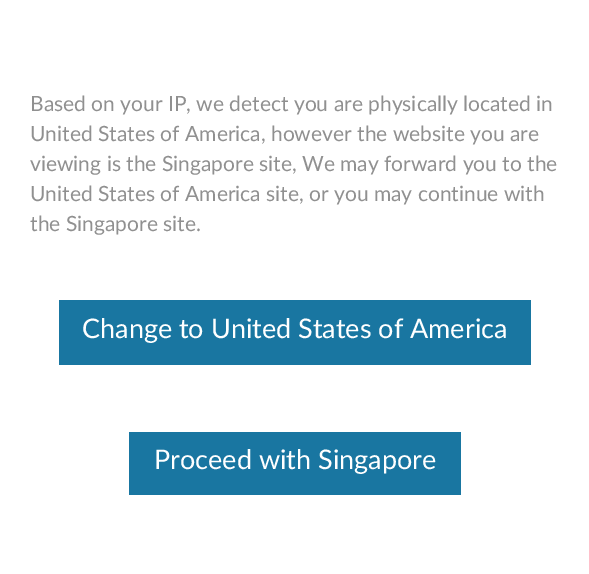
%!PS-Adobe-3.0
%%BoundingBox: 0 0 589 574
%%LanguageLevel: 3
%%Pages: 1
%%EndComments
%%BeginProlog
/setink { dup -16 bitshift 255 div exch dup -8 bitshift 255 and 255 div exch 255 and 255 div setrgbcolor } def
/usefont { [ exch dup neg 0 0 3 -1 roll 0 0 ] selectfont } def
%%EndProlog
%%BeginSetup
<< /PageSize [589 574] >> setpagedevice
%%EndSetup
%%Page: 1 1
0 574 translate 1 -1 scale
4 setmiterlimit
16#FFFFFF setink
0 0 589 574 rectfill
/Lato-Regular 21 usefont
16#909090 setink
[
    [(Based on your IP, we detect you are physically located in) 30 111]
    [(United States of America, however the website you are) 30 141]
    [(viewing is the Singapore site, We may forward you to the) 30 171]
    [(United States of America site, or you may continue with) 30 201]
    [(the Singapore site.) 30 231]
] { aload pop moveto show } forall
16#1976A1 setink
59 300 472 65 rectfill
/Lato-Regular 27 usefont
16#FFFFFF setink
82 338 moveto (Change to United States of America) show
16#1976A1 setink
129 432 332 63 rectfill
16#FFFFFF setink
154 469 moveto (Proceed with Singapore) show
showpage
%%EOF
